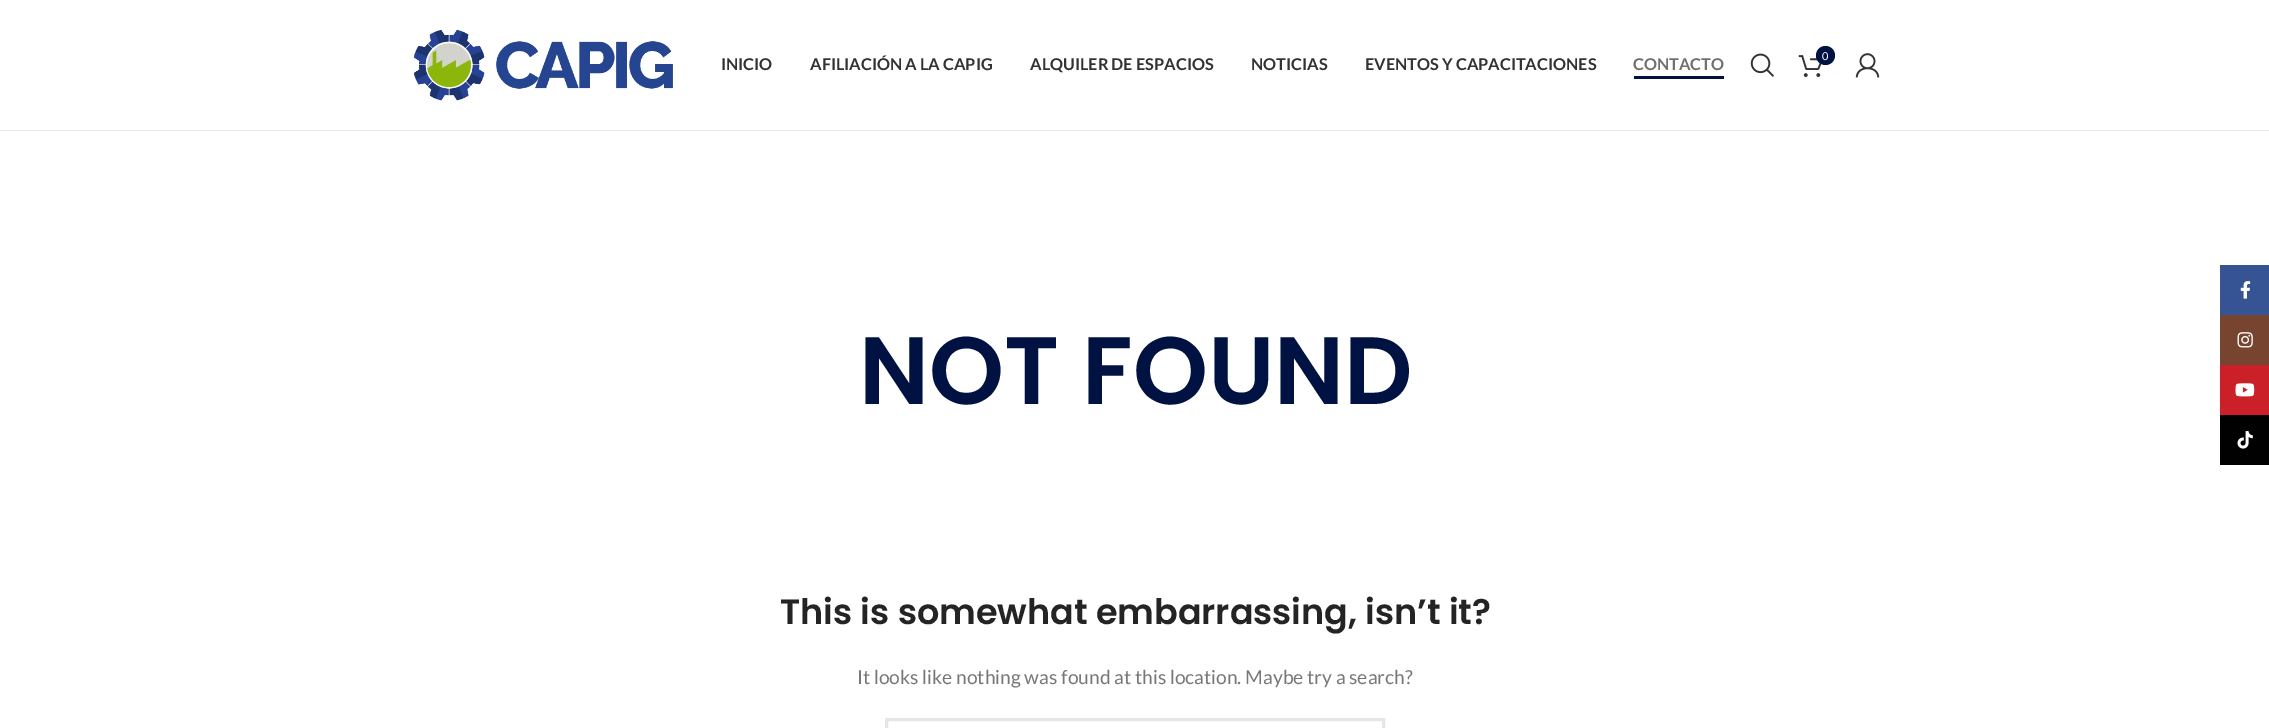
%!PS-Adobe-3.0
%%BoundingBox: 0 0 2269 728
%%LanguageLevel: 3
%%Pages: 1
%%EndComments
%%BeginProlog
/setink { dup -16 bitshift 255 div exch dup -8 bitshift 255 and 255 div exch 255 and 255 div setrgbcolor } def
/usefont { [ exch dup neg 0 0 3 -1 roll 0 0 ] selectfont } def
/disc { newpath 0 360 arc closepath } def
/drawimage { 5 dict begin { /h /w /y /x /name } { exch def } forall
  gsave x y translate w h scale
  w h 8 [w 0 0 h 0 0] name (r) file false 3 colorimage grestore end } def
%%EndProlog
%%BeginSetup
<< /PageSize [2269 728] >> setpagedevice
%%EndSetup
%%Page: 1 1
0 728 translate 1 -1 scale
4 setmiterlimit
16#FFFFFF setink
0 0 2269 728 rectfill
16#E6E6E6 setink
0 130 2269 1 rectfill
(img1.raw) 414 29 259 72 drawimage
/Lato-Bold 16.25 usefont
16#333333 setink
[
    [(INICIO) 721 70]
    [(AFILIACIÓN A LA CAPIG) 810 70]
    [(ALQUILER DE ESPACIOS) 1030 70]
    [(NOTICIAS) 1251 70]
    [(EVENTOS Y CAPACITACIONES) 1365 70]
] { aload pop moveto show } forall
16#707070 setink
1633 70 moveto (CONTACTO) show
16#001242 setink
1634 76 90 3 rectfill
(img2.raw) 1750 53 24 24 drawimage
(img3.raw) 1798 55 24 22 drawimage
1825.5 55.5 9.5 disc fill
/Lato-Regular 11 usefont
16#FFFFFF setink
1822 60 moveto (0) show
(img4.raw) 1855 53 25 25 drawimage
/Poppins-SemiBold 95.5 usefont
16#001242 setink
859 404 moveto (NOT FOUND) show
/Poppins-SemiBold 35 usefont
16#242424 setink
780 624 moveto (This is somewhat embarrassing, isn’t it?) show
/Lato-Regular 19.25 usefont
16#777777 setink
857 684 moveto (It looks like nothing was found at this location. Maybe try a search?) show
16#E6E6E6 setink
3 setlinewidth
886.5 719.5 497 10 rectstroke
16#365493 setink
2220 265 49 50 rectfill
(img5.raw) 2240 281 11 18 drawimage
16#774430 setink
2220 315 49 50 rectfill
(img6.raw) 2237 332 16 16 drawimage
16#CB2027 setink
2220 365 49 50 rectfill
(img7.raw) 2235 383 20 14 drawimage
16#010101 setink
2220 415 49 50 rectfill
(img8.raw) 2237 431 16 18 drawimage
showpage
%%EOF
